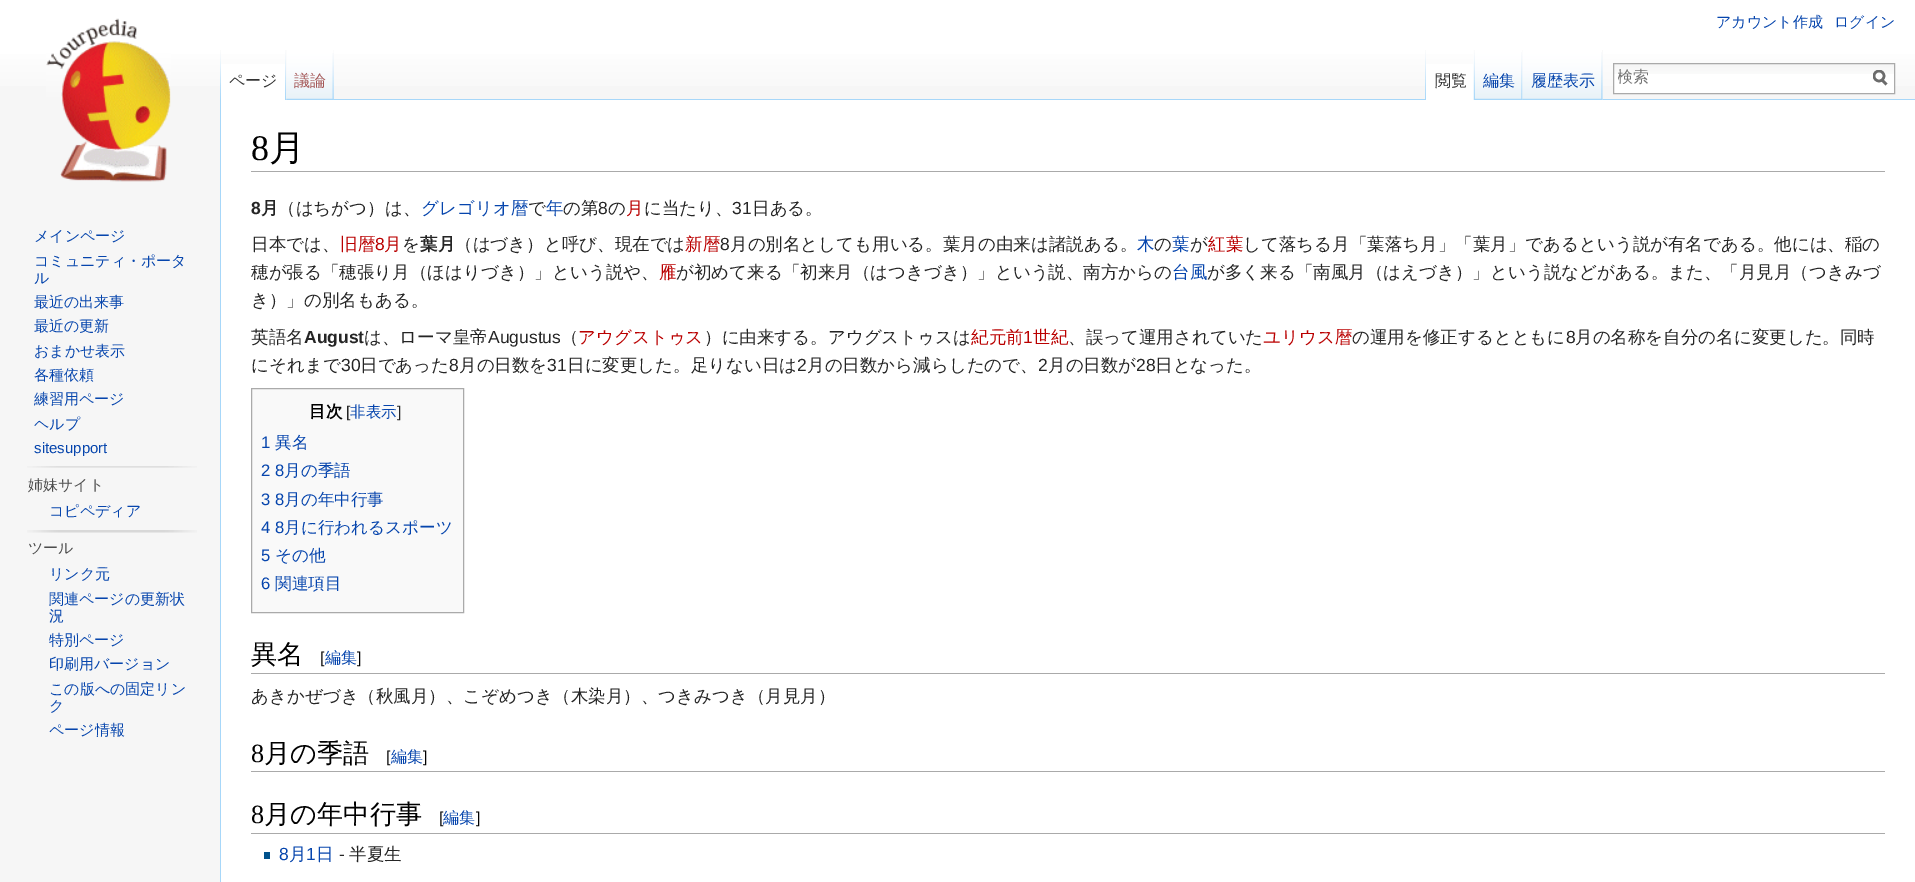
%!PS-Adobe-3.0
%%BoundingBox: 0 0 1915 882
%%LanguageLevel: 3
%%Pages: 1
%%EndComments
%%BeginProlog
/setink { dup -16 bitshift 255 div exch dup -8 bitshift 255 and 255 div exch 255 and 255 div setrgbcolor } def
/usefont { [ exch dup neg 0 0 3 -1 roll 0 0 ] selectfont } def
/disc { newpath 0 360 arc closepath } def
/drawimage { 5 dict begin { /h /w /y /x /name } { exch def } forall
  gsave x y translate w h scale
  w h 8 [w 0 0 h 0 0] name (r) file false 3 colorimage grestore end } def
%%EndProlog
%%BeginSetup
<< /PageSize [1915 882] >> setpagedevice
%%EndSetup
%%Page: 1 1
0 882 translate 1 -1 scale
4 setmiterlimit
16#F6F6F6 setink
0 0 1915 882 rectfill
gsave 0 0 moveto 1915 0 lineto 1915 86 lineto 0 86 lineto closepath clip newpath
<< /ShadingType 2 /ColorSpace /DeviceRGB /Coords [958 0 958 100] /Extend [true true] /Function << /FunctionType 3 /Domain [0 1] /Functions [<< /FunctionType 2 /Domain [0 1] /C0 [1 1 1] /C1 [1 1 1] /N 1 >> << /FunctionType 2 /Domain [0 1] /C0 [1 1 1] /C1 [0.965 0.965 0.965] /N 1 >>] /Bounds [0.5] /Encode [0 1 0 1] >> >> shfill grestore
/WenQuanYiZenHei-Medium 15 usefont
16#0645AD setink
1716 27 moveto (アカウント作成) show
1834 27 moveto (ログイン) show
(img1.raw) 220 50 1 49 drawimage
(img2.raw) 333 52 1 47 drawimage
16#FFFFFF setink
221 64 66 36 rectfill
(img3.raw) 285 50 2 50 drawimage
/WenQuanYiZenHei-Medium 16 usefont
16#333333 setink
229 86 moveto (ページ) show
16#A7D7F9 setink
333 99 1582 1 rectfill
(img4.raw) 286 50 48 50 drawimage
(img5.raw) 332 53 2 47 drawimage
16#A55858 setink
294 86 moveto (議論) show
(img1.raw) 1425 50 1 49 drawimage
16#FFFFFF setink
1426 64 48 36 rectfill
(img6.raw) 1473 50 2 50 drawimage
16#333333 setink
1435 86 moveto (閲覧) show
(img7.raw) 1475 50 48 50 drawimage
(img8.raw) 1521 52 2 48 drawimage
16#0645AD setink
1483 86 moveto (編集) show
16#F3F3F3 setink
1602 50 1 50 rectfill
(img9.raw) 1522 50 81 50 drawimage
(img8.raw) 1601 52 2 48 drawimage
16#0645AD setink
1531 86 moveto (履歴表示) show
16#FFFFFF setink
1614 74 280 19 rectfill
(img10.raw) 1614 64 280 10 drawimage
16#AAAAAA setink
1613.5 63.5 281 30 rectstroke
gsave
1618 66 232 23 rectclip
16#757575 setink
1617 82 moveto (検索) show
grestore
16#6C6C6C setink
2.5 setlinewidth
1886.5 84.5 moveto 1881.5 79.5 lineto stroke
gsave
1873 70 15 16 rectclip
1879 76 5 disc stroke
grestore
(img11.raw) 46 18 125 164 drawimage
/WenQuanYiZenHei-Medium 15 usefont
16#0645AD setink
[
    [(メインページ) 34 241]
    [(コミュニティ・ポータ) 34 266]
    [(ル) 34 283]
    [(最近の出来事) 34 307]
    [(最近の更新) 34 331]
    [(おまかせ表示) 34 356]
    [(各種依頼) 34 380]
    [(練習用ページ) 34 404]
    [(ヘルプ) 34 429]
] { aload pop moveto show } forall
/LiberationSans-Regular 15 usefont
34 453 moveto (sitesupport) show
(img12.raw) 27 466 170 2 drawimage
/WenQuanYiZenHei-Medium 15 usefont
16#4D4D4D setink
28 490 moveto (姉妹サイト) show
16#0645AD setink
49 516 moveto (コピペディア) show
(img13.raw) 27 530 170 3 drawimage
16#4D4D4D setink
28 553 moveto (ツール) show
16#0645AD setink
[
    [(リンク元) 49 579]
    [(関連ページの更新状) 49 604]
    [(況) 49 621]
    [(特別ページ) 49 645]
    [(印刷用バージョン) 49 669]
    [(この版への固定リン) 49 694]
    [(ク) 49 711]
    [(ページ情報) 49 735]
] { aload pop moveto show } forall
[
    [221 100 1694 782 16#FFFFFF]
    [220 99 1 783 16#A7D7F9]
    [251 171 1634 1 16#AAAAAA]
] { aload pop setink rectfill } forall
/LiberationSerif-Regular 36 usefont
16#000000 setink
251 160 moveto (8) show
/WenQuanYiZenHei-Medium 36 usefont
269 160 moveto (月) show
/LiberationSans-Bold 17.5 usefont
16#252525 setink
251 214 moveto (8) show
/WenQuanYiZenHei-Bold 17.5 usefont
261 214 moveto (月) show
/WenQuanYiZenHei-Medium 17.5 usefont
278 214 moveto (（はちがつ）は、) show
16#0645AD setink
421 214 moveto (グレゴリオ暦) show
16#252525 setink
528 214 moveto (で) show
16#0645AD setink
546 214 moveto (年) show
16#252525 setink
563 214 moveto (の第) show
/LiberationSans-Regular 17.5 usefont
598 214 moveto (8) show
/WenQuanYiZenHei-Medium 17.5 usefont
608 214 moveto (の) show
16#BA0000 setink
626 214 moveto (月) show
16#252525 setink
644 214 moveto (に当たり、) show
/LiberationSans-Regular 17.5 usefont
732 214 moveto (31) show
/WenQuanYiZenHei-Medium 17.5 usefont
752 214 moveto (日ある。) show
251 250 moveto (日本では、) show
16#BA0000 setink
340 250 moveto (旧暦) show
/LiberationSans-Regular 17.5 usefont
375 250 moveto (8) show
/WenQuanYiZenHei-Medium 17.5 usefont
384 250 moveto (月) show
16#252525 setink
402 250 moveto (を) show
/WenQuanYiZenHei-Bold 17.5 usefont
420 250 moveto (葉月) show
/WenQuanYiZenHei-Medium 17.5 usefont
455 250 moveto (（はづき）と呼び、現在では) show
16#BA0000 setink
685 250 moveto (新暦) show
/LiberationSans-Regular 17.5 usefont
16#252525 setink
720 250 moveto (8) show
/WenQuanYiZenHei-Medium 17.5 usefont
730 250 moveto (月の別名としても用いる。葉月の由来は諸説ある。) show
16#0645AD setink
1137 250 moveto (木) show
16#252525 setink
1154 250 moveto (の) show
16#0645AD setink
1172 250 moveto (葉) show
16#252525 setink
1190 250 moveto (が) show
16#BA0000 setink
1208 250 moveto (紅葉) show
16#252525 setink
1243 250 moveto (して落ちる月「葉落ち月」「葉月」であるという説が有名である。他には、稲の) show
251 278 moveto (穂が張る「穂張り月（ほはりづき）」という説や、) show
16#BA0000 setink
659 278 moveto (雁) show
16#252525 setink
676 278 moveto (が初めて来る「初来月（はつきづき）」という説、南方からの) show
16#0645AD setink
1172 278 moveto (台風) show
16#252525 setink
[
    [(が多く来る「南風月（はえづき）」という説などがある。また、「月見月（つきみづ) 1207 278]
    [(き）」の別名もある。) 251 306]
    [(英語名) 251 343]
] { aload pop moveto show } forall
/LiberationSans-Bold 17.5 usefont
304 343 moveto (August) show
/WenQuanYiZenHei-Medium 17.5 usefont
364 343 moveto (は、ローマ皇帝) show
/LiberationSans-Regular 17.5 usefont
488 343 moveto (Augustus) show
/WenQuanYiZenHei-Medium 17.5 usefont
561 343 moveto (（) show
16#BA0000 setink
578 343 moveto (アウグストゥス) show
16#252525 setink
704 343 moveto (）に由来する。アウグストゥスは) show
16#BA0000 setink
971 343 moveto (紀元前) show
/LiberationSans-Regular 17.5 usefont
1023 343 moveto (1) show
/WenQuanYiZenHei-Medium 17.5 usefont
1033 343 moveto (世紀) show
16#252525 setink
1068 343 moveto (、誤って運用されていた) show
16#BA0000 setink
1263 343 moveto (ユリウス暦) show
16#252525 setink
1352 343 moveto (の運用を修正するとともに) show
/LiberationSans-Regular 17.5 usefont
1566 343 moveto (8) show
/WenQuanYiZenHei-Medium 17.5 usefont
1575 343 moveto (月の名称を自分の名に変更した。同時) show
251 371 moveto (にそれまで) show
/LiberationSans-Regular 17.5 usefont
341 371 moveto (30) show
/WenQuanYiZenHei-Medium 17.5 usefont
360 371 moveto (日であった) show
/LiberationSans-Regular 17.5 usefont
449 371 moveto (8) show
/WenQuanYiZenHei-Medium 17.5 usefont
459 371 moveto (月の日数を) show
/LiberationSans-Regular 17.5 usefont
547 371 moveto (31) show
/WenQuanYiZenHei-Medium 17.5 usefont
567 371 moveto (日に変更した。足りない日は) show
/LiberationSans-Regular 17.5 usefont
797 371 moveto (2) show
/WenQuanYiZenHei-Medium 17.5 usefont
807 371 moveto (月の日数から減らしたので、) show
/LiberationSans-Regular 17.5 usefont
1038 371 moveto (2) show
/WenQuanYiZenHei-Medium 17.5 usefont
1048 371 moveto (月の日数が) show
/LiberationSans-Regular 17.5 usefont
1136 371 moveto (28) show
/WenQuanYiZenHei-Medium 17.5 usefont
1155 371 moveto (日となった。) show
16#F9F9F9 setink
251.5 388.5 moveto 463.5 388.5 lineto 463.5 612.5 lineto 251.5 612.5 lineto closepath gsave fill grestore
16#AAAAAA setink
1 setlinewidth
stroke
/WenQuanYiZenHei-Bold 16.6 usefont
16#000000 setink
309 417 moveto (目次) show
/LiberationSans-Regular 15.5 usefont
16#252525 setink
346 417 moveto ([) show
/WenQuanYiZenHei-Medium 15.5 usefont
16#0645AD setink
350 417 moveto (非表示) show
/LiberationSans-Regular 15.5 usefont
16#252525 setink
397 417 moveto (]) show
/LiberationSans-Regular 16.6 usefont
16#0645AD setink
261 448 moveto (1) show
/WenQuanYiZenHei-Medium 16.6 usefont
275 448 moveto (異名) show
/LiberationSans-Regular 16.6 usefont
261 476 moveto (2 8) show
/WenQuanYiZenHei-Medium 16.6 usefont
284 476 moveto (月の季語) show
/LiberationSans-Regular 16.6 usefont
261 505 moveto (3 8) show
/WenQuanYiZenHei-Medium 16.6 usefont
284 505 moveto (月の年中行事) show
/LiberationSans-Regular 16.6 usefont
261 533 moveto (4 8) show
/WenQuanYiZenHei-Medium 16.6 usefont
284 533 moveto (月に行われるスポーツ) show
/LiberationSans-Regular 16.6 usefont
261 561 moveto (5) show
/WenQuanYiZenHei-Medium 16.6 usefont
275 561 moveto (その他) show
/LiberationSans-Regular 16.6 usefont
261 589 moveto (6) show
/WenQuanYiZenHei-Medium 16.6 usefont
275 589 moveto (関連項目) show
16#AAAAAA setink
251 673 1634 1 rectfill
/WenQuanYiZenHei-Medium 26.25 usefont
16#000000 setink
251 663 moveto (異名) show
/LiberationSans-Regular 16 usefont
320 663 moveto ([) show
/WenQuanYiZenHei-Medium 16 usefont
16#0645AD setink
325 663 moveto (編集) show
/LiberationSans-Regular 16 usefont
16#000000 setink
357 663 moveto (]) show
/WenQuanYiZenHei-Medium 17.5 usefont
16#252525 setink
251 702 moveto (あきかぜづき（秋風月）、こぞめつき（木染月）、つきみつき（月見月）) show
16#AAAAAA setink
251 771 1634 1 rectfill
/LiberationSerif-Regular 26.25 usefont
16#000000 setink
251 762 moveto (8) show
/WenQuanYiZenHei-Medium 26.25 usefont
264 762 moveto (月の季語) show
/LiberationSans-Regular 16 usefont
386 762 moveto ([) show
/WenQuanYiZenHei-Medium 16 usefont
16#0645AD setink
391 762 moveto (編集) show
/LiberationSans-Regular 16 usefont
16#000000 setink
423 762 moveto (]) show
16#AAAAAA setink
251 833 1634 1 rectfill
/LiberationSerif-Regular 26.25 usefont
16#000000 setink
251 823 moveto (8) show
/WenQuanYiZenHei-Medium 26.25 usefont
264 823 moveto (月の年中行事) show
/LiberationSans-Regular 16 usefont
439 823 moveto ([) show
/WenQuanYiZenHei-Medium 16 usefont
16#0645AD setink
443 823 moveto (編集) show
/LiberationSans-Regular 16 usefont
16#000000 setink
476 823 moveto (]) show
16#00528C setink
264 852 6 7 rectfill
/LiberationSans-Regular 17.5 usefont
16#0645AD setink
279 860 moveto (8) show
/WenQuanYiZenHei-Medium 17.5 usefont
289 860 moveto (月) show
/LiberationSans-Regular 17.5 usefont
306 860 moveto (1) show
/WenQuanYiZenHei-Medium 17.5 usefont
316 860 moveto (日) show
/LiberationSans-Regular 17.5 usefont
16#252525 setink
339 860 moveto (-) show
/WenQuanYiZenHei-Medium 17.5 usefont
349 860 moveto (半夏生) show
showpage
%%EOF
